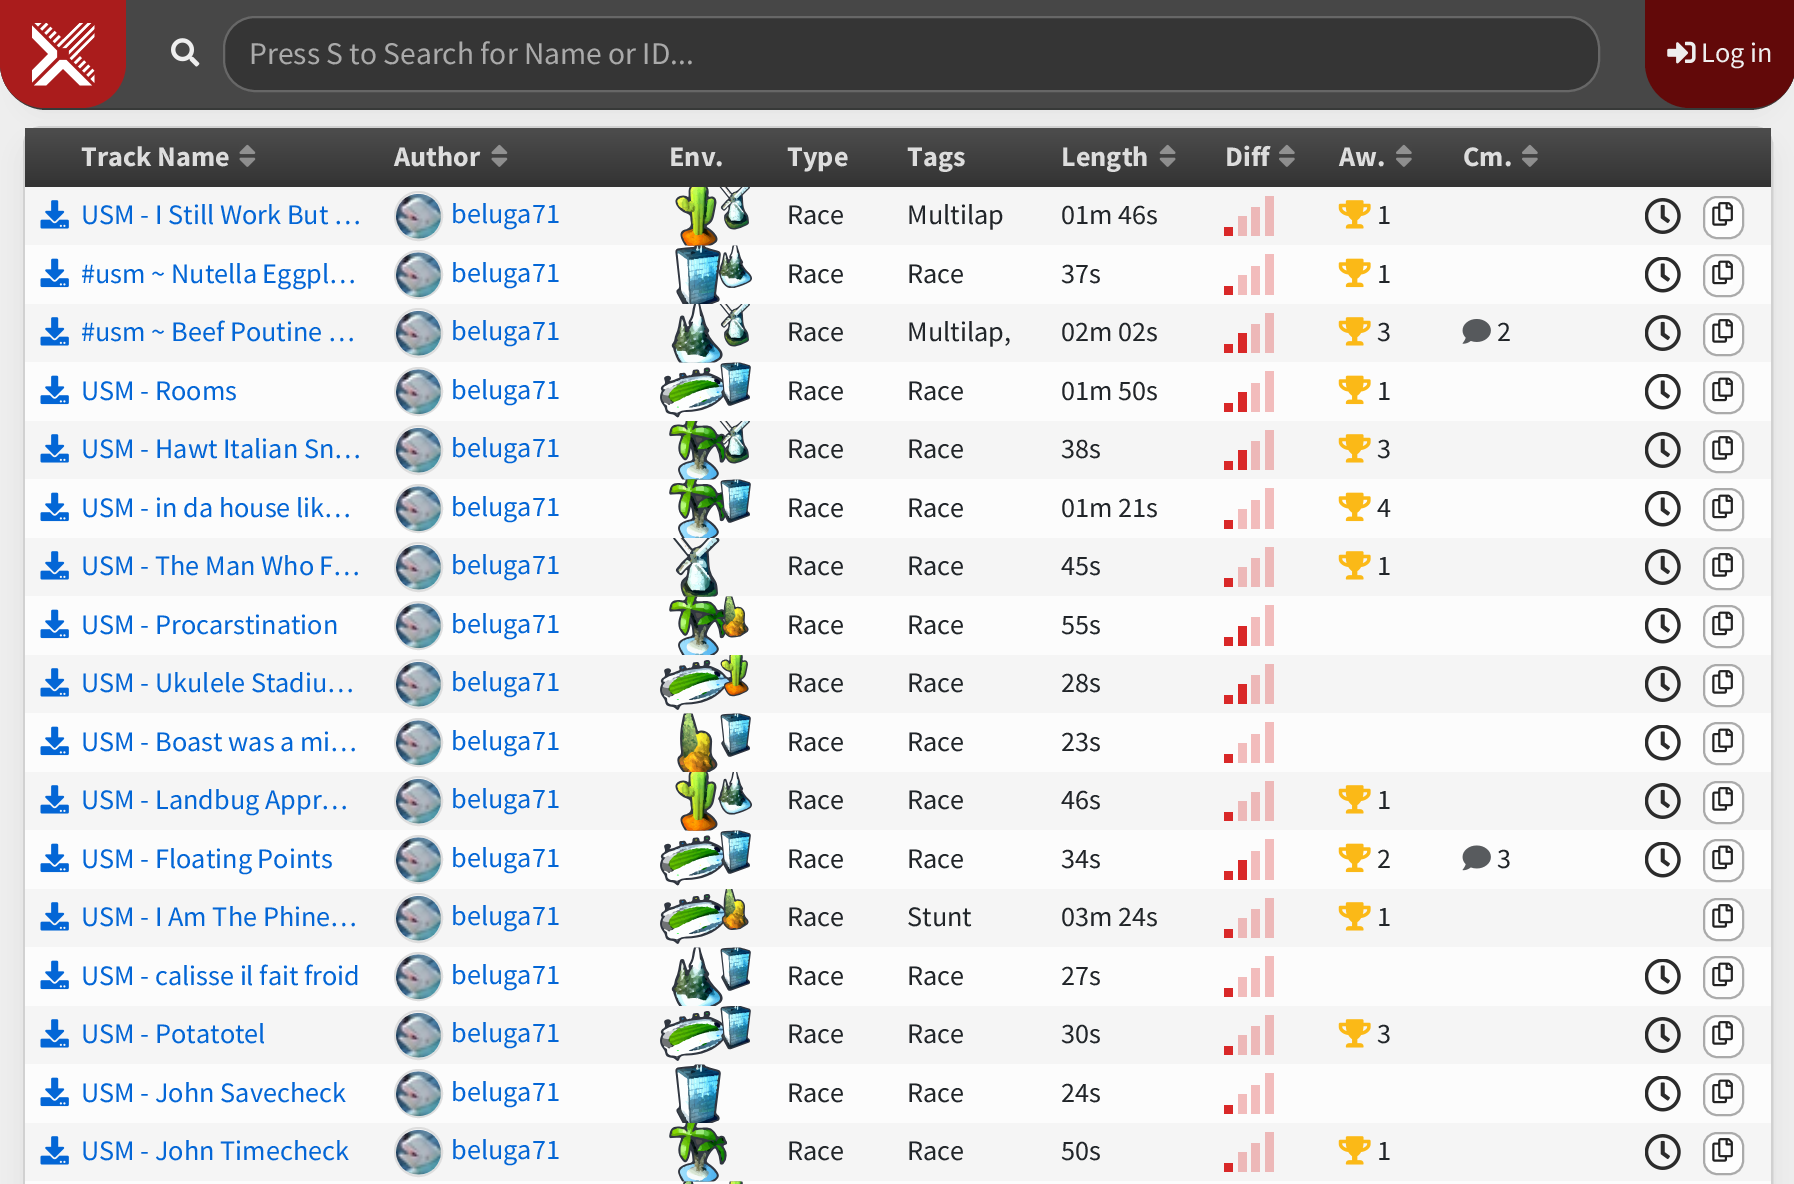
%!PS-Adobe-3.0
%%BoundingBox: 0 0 1794 1184
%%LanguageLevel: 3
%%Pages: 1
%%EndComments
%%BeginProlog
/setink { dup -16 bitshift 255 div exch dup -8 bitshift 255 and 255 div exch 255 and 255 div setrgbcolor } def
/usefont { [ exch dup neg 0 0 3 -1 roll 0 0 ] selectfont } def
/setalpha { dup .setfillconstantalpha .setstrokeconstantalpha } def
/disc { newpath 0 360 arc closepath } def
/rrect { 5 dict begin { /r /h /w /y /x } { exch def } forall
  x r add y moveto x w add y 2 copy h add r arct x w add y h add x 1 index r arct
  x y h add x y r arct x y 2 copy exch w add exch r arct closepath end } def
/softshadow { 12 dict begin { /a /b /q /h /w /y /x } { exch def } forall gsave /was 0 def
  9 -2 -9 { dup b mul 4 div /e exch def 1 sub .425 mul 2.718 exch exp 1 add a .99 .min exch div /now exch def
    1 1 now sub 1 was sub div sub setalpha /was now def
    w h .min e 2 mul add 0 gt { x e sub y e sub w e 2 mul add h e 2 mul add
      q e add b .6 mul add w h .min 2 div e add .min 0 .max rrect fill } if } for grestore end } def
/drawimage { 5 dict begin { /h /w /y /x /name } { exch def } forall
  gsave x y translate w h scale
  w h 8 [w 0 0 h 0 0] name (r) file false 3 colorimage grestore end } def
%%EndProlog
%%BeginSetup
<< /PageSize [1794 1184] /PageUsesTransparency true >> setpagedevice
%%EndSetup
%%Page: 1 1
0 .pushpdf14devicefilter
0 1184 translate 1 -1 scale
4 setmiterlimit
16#EEEEEE setink
0 0 1794 1184 rectfill
16#000000 setink
23 27 1750 83 18 12.5 0.06 softshadow
23 142 1750 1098 18 12.5 0.06 softshadow
16#373938 setink
0 0 moveto 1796 0 lineto 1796 63 lineto 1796 89 1775 110 1749 110 curveto 47 110 lineto 21 110 0 89 0 63 curveto closepath fill
16#474747 setink
0 0 moveto 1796 0 lineto 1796 63 lineto 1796 88 1776 108 1751 108 curveto 45 108 lineto 20 108 0 88 0 63 curveto closepath fill
16#AA1C1C setink
0 0 moveto 126 0 lineto 126 63 lineto 126 88 106 108 81 108 curveto 45 108 lineto 20 108 0 88 0 63 curveto closepath fill
(img1.raw) 32 23 63 63 drawimage
(img2.raw) 171 38 29 29 drawimage
16#353535 setink
224 17 1375 74 31 rrect gsave fill grestore
16#676767 setink
2 setlinewidth
stroke
/SourceSansPro-Regular 31.5 usefont
16#AAAAAA setink
249 64 moveto (Press S to Search for Name or ID...) show
16#620909 setink
1645 0 moveto 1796 0 lineto 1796 63 lineto 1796 88 1776 108 1751 108 curveto 1690 108 lineto 1665 108 1645 88 1645 63 curveto closepath fill
(img3.raw) 1667 41 29 23 drawimage
/SourceSansPro-Regular 28.25 usefont
16#EEEEEE setink
1701 62 moveto (Log in) show
16#FFFFFF setink
23 126 1750 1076 18 rrect fill
0.18 setalpha
16#000000 setink
24 127 1748 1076 17 rrect stroke
1 setalpha
gsave 25 128 moveto 1771 128 lineto 1771 187 lineto 25 187 lineto closepath clip newpath
<< /ShadingType 2 /ColorSpace /DeviceRGB /Coords [898 187 898 128] /Extend [true true] /Function << /FunctionType 2 /Domain [0 1] /C0 [0.2 0.2 0.2] /C1 [0.302 0.302 0.302] /N 1 >> >> shfill grestore
/SourceSansPro-Bold 28.25 usefont
16#DDDDDD setink
81 166 moveto (Track Name) show
(img4.raw) 239 144 17 23 drawimage
394 166 moveto (Author) show
(img4.raw) 491 144 17 23 drawimage
[
    [(Env.) 669 166]
    [(Type) 787 166]
    [(Tags) 907 166]
    [(Length) 1061 166]
] { aload pop moveto show } forall
(img5.raw) 1159 144 17 23 drawimage
1225 166 moveto (Diff) show
(img6.raw) 1279 144 16 23 drawimage
1339 166 moveto (Aw.) show
(img6.raw) 1396 144 16 23 drawimage
1463 166 moveto (Cm.) show
(img6.raw) 1522 144 16 23 drawimage
16#F5F5F5 setink
25 187 1746 58 rectfill
(img7.raw) 40 200 29 29 drawimage
/SourceSansPro-Regular 28.25 usefont
16#0366D6 setink
81 224 moveto (USM - I Still Work But …) show
16#DDDDDD setink
395 192 47 48 23.5 rrect stroke
(img8.raw) 396 193 45 46 drawimage
16#0366D6 setink
451 223 moveto (beluga71) show
16#FCFCFC setink
25 245 1746 59 rectfill
(img9.raw) 675 187 43 59 drawimage
(img10.raw) 719 187 31 43 drawimage
16#212529 setink
[
    [(Race) 787 224]
    [(Multilap) 907 224]
    [(01m 46s) 1061 224]
] { aload pop moveto show } forall
[
    [1224 227 9 9 16#D92828]
    [1238 216 9 20 16#EDB8B8]
    [1251 207 9 29 16#EDB8B8]
    [1265 196 9 40 16#EDB8B8]
] { aload pop setink rectfill } forall
(img11.raw) 1338 200 33 29 drawimage
16#212529 setink
1377 224 moveto (1) show
(img12.raw) 1645 198 36 36 drawimage
16#FEFEFE setink
1704 197 39 41 13 rrect gsave fill grestore
16#AAAAAA setink
stroke
(img13.raw) 1712 202 21 24 drawimage
(img14.raw) 40 258 29 30 drawimage
16#0366D6 setink
81 283 moveto (#usm ~ Nutella Eggpl…) show
16#DDDDDD setink
418.5 274.5 23.5 disc stroke
(img15.raw) 396 252 45 46 drawimage
16#0366D6 setink
451 282 moveto (beluga71) show
(img16.raw) 675 245 46 59 drawimage
(img17.raw) 718 245 34 43 drawimage
16#212529 setink
[
    [(Race) 787 283]
    [(Race) 907 283]
    [(37s) 1061 283]
] { aload pop moveto show } forall
[
    [1224 286 9 9 16#D92828]
    [1238 275 9 20 16#F2BCBC]
    [1251 266 9 29 16#F2BCBC]
    [1265 254 9 41 16#F2BCBC]
] { aload pop setink rectfill } forall
(img18.raw) 1338 258 33 30 drawimage
16#212529 setink
1377 283 moveto (1) show
(img19.raw) 1645 257 36 36 drawimage
16#AAAAAA setink
1704 255 39 41 13 rrect stroke
(img20.raw) 1712 260 21 25 drawimage
16#F5F5F5 setink
25 304 1746 58 rectfill
(img7.raw) 40 317 29 29 drawimage
16#0366D6 setink
81 341 moveto (#usm ~ Beef Poutine …) show
16#DDDDDD setink
395 309 47 48 23.5 rrect stroke
(img21.raw) 396 310 45 46 drawimage
16#0366D6 setink
451 340 moveto (beluga71) show
16#FCFCFC setink
25 362 1746 59 rectfill
(img22.raw) 671 304 52 59 drawimage
(img23.raw) 719 304 31 43 drawimage
16#212529 setink
[
    [(Race) 787 341]
    [(Multilap,) 907 341]
    [(02m 02s) 1061 341]
] { aload pop moveto show } forall
[
    [1224 344 9 9 16#D92828]
    [1238 333 9 20 16#D92828]
    [1251 324 9 29 16#EDB8B8]
    [1265 313 9 40 16#EDB8B8]
] { aload pop setink rectfill } forall
(img11.raw) 1338 317 33 29 drawimage
16#212529 setink
1377 341 moveto (3) show
(img24.raw) 1462 319 29 25 drawimage
1497 341 moveto (2) show
(img12.raw) 1645 315 36 36 drawimage
16#FEFEFE setink
1704 314 39 41 13 rrect gsave fill grestore
16#AAAAAA setink
stroke
(img13.raw) 1712 319 21 24 drawimage
(img14.raw) 40 375 29 30 drawimage
16#0366D6 setink
81 400 moveto (USM - Rooms) show
16#DDDDDD setink
418.5 391.5 23.5 disc stroke
(img15.raw) 396 369 45 46 drawimage
16#0366D6 setink
451 399 moveto (beluga71) show
(img25.raw) 660 367 64 51 drawimage
(img26.raw) 720 362 31 44 drawimage
16#212529 setink
[
    [(Race) 787 400]
    [(Race) 907 400]
    [(01m 50s) 1061 400]
] { aload pop moveto show } forall
[
    [1224 403 9 9 16#D92828]
    [1238 392 9 20 16#D92828]
    [1251 383 9 29 16#F2BCBC]
    [1265 371 9 41 16#F2BCBC]
] { aload pop setink rectfill } forall
(img18.raw) 1338 375 33 30 drawimage
16#212529 setink
1377 400 moveto (1) show
(img19.raw) 1645 374 36 36 drawimage
16#AAAAAA setink
1704 372 39 41 13 rrect stroke
(img20.raw) 1712 377 21 25 drawimage
16#F5F5F5 setink
25 421 1746 58 rectfill
(img7.raw) 40 434 29 29 drawimage
16#0366D6 setink
81 458 moveto (USM - Hawt Italian Sn…) show
16#DDDDDD setink
395 426 47 48 23.5 rrect stroke
(img21.raw) 396 427 45 46 drawimage
16#0366D6 setink
451 457 moveto (beluga71) show
16#FCFCFC setink
25 479 1746 59 rectfill
(img27.raw) 669 421 59 59 drawimage
(img28.raw) 719 421 31 43 drawimage
16#212529 setink
[
    [(Race) 787 458]
    [(Race) 907 458]
    [(38s) 1061 458]
] { aload pop moveto show } forall
[
    [1224 461 9 9 16#D92828]
    [1238 450 9 20 16#D92828]
    [1251 441 9 29 16#EDB8B8]
    [1265 430 9 40 16#EDB8B8]
] { aload pop setink rectfill } forall
(img11.raw) 1338 434 33 29 drawimage
16#212529 setink
1377 458 moveto (3) show
(img12.raw) 1645 432 36 36 drawimage
16#FEFEFE setink
1704 431 39 41 13 rrect gsave fill grestore
16#AAAAAA setink
stroke
(img13.raw) 1712 436 21 24 drawimage
(img14.raw) 40 492 29 30 drawimage
16#0366D6 setink
81 517 moveto (USM - in da house lik…) show
16#DDDDDD setink
418.5 508.5 23.5 disc stroke
(img15.raw) 396 486 45 46 drawimage
16#0366D6 setink
451 516 moveto (beluga71) show
(img29.raw) 669 479 57 59 drawimage
(img30.raw) 720 479 31 44 drawimage
16#212529 setink
[
    [(Race) 787 517]
    [(Race) 907 517]
    [(01m 21s) 1061 517]
] { aload pop moveto show } forall
[
    [1224 520 9 9 16#D92828]
    [1238 509 9 20 16#F2BCBC]
    [1251 500 9 29 16#F2BCBC]
    [1265 488 9 41 16#F2BCBC]
] { aload pop setink rectfill } forall
(img18.raw) 1338 492 33 30 drawimage
16#212529 setink
1377 517 moveto (4) show
(img19.raw) 1645 491 36 36 drawimage
16#AAAAAA setink
1704 489 39 41 13 rrect stroke
(img20.raw) 1712 494 21 25 drawimage
16#F5F5F5 setink
25 538 1746 58 rectfill
(img7.raw) 40 551 29 29 drawimage
16#0366D6 setink
81 575 moveto (USM - The Man Who F…) show
16#DDDDDD setink
395 543 47 48 23.5 rrect stroke
(img21.raw) 396 544 45 46 drawimage
16#0366D6 setink
451 574 moveto (beluga71) show
16#FCFCFC setink
25 596 1746 59 rectfill
(img31.raw) 673 538 47 59 drawimage
16#212529 setink
[
    [(Race) 787 575]
    [(Race) 907 575]
    [(45s) 1061 575]
] { aload pop moveto show } forall
[
    [1224 578 9 9 16#D92828]
    [1238 567 9 20 16#EDB8B8]
    [1251 558 9 29 16#EDB8B8]
    [1265 547 9 40 16#EDB8B8]
] { aload pop setink rectfill } forall
(img11.raw) 1338 551 33 29 drawimage
16#212529 setink
1377 575 moveto (1) show
(img12.raw) 1645 549 36 36 drawimage
16#FEFEFE setink
1704 548 39 41 13 rrect gsave fill grestore
16#AAAAAA setink
stroke
(img13.raw) 1712 553 21 24 drawimage
(img14.raw) 40 609 29 30 drawimage
16#0366D6 setink
81 634 moveto (USM - Procarstination) show
16#DDDDDD setink
418.5 625.5 23.5 disc stroke
(img15.raw) 396 603 45 46 drawimage
16#0366D6 setink
451 633 moveto (beluga71) show
(img32.raw) 669 596 57 59 drawimage
(img33.raw) 721 596 28 42 drawimage
16#212529 setink
[
    [(Race) 787 634]
    [(Race) 907 634]
    [(55s) 1061 634]
] { aload pop moveto show } forall
[
    [1224 637 9 9 16#D92828]
    [1238 626 9 20 16#D92828]
    [1251 617 9 29 16#F2BCBC]
    [1265 605 9 41 16#F2BCBC]
] { aload pop setink rectfill } forall
(img19.raw) 1645 608 36 36 drawimage
16#AAAAAA setink
1704 606 39 41 13 rrect stroke
(img20.raw) 1712 611 21 25 drawimage
16#F5F5F5 setink
25 655 1746 58 rectfill
(img7.raw) 40 668 29 29 drawimage
16#0366D6 setink
81 692 moveto (USM - Ukulele Stadiu…) show
16#DDDDDD setink
395 660 47 48 23.5 rrect stroke
(img21.raw) 396 661 45 46 drawimage
16#0366D6 setink
451 691 moveto (beluga71) show
(img34.raw) 660 660 71 50 drawimage
(img35.raw) 720 655 29 42 drawimage
16#212529 setink
[
    [(Race) 787 692]
    [(Race) 907 692]
    [(28s) 1061 692]
] { aload pop moveto show } forall
[
    [1224 695 9 9 16#D92828]
    [1238 684 9 20 16#D92828]
    [1251 675 9 29 16#EDB8B8]
    [1265 664 9 40 16#EDB8B8]
] { aload pop setink rectfill } forall
(img12.raw) 1645 666 36 36 drawimage
16#FEFEFE setink
1704 665 39 41 13 rrect gsave fill grestore
16#AAAAAA setink
stroke
(img13.raw) 1712 670 21 24 drawimage
16#FCFCFC setink
25 713 1746 59 rectfill
(img14.raw) 40 726 29 30 drawimage
16#0366D6 setink
81 751 moveto (USM - Boast was a mi…) show
16#DDDDDD setink
418.5 742.5 23.5 disc stroke
(img36.raw) 396 720 45 46 drawimage
16#0366D6 setink
451 750 moveto (beluga71) show
(img37.raw) 677 713 41 59 drawimage
(img38.raw) 720 713 31 44 drawimage
16#212529 setink
[
    [(Race) 787 751]
    [(Race) 907 751]
    [(23s) 1061 751]
] { aload pop moveto show } forall
[
    [1224 754 9 9 16#D92828]
    [1238 743 9 20 16#F2BCBC]
    [1251 734 9 29 16#F2BCBC]
    [1265 722 9 41 16#F2BCBC]
] { aload pop setink rectfill } forall
(img19.raw) 1645 725 36 36 drawimage
16#AAAAAA setink
1704 723 39 41 13 rrect stroke
(img20.raw) 1712 728 21 25 drawimage
16#F5F5F5 setink
25 772 1746 58 rectfill
(img7.raw) 40 785 29 29 drawimage
16#0366D6 setink
81 809 moveto (USM - Landbug Appr…) show
16#DDDDDD setink
395 777 47 48 23.5 rrect stroke
(img21.raw) 396 778 45 46 drawimage
16#0366D6 setink
451 808 moveto (beluga71) show
16#FCFCFC setink
25 830 1746 59 rectfill
(img39.raw) 675 772 43 59 drawimage
(img40.raw) 718 772 34 43 drawimage
16#212529 setink
[
    [(Race) 787 809]
    [(Race) 907 809]
    [(46s) 1061 809]
] { aload pop moveto show } forall
[
    [1224 812 9 9 16#D92828]
    [1238 801 9 20 16#EDB8B8]
    [1251 792 9 29 16#EDB8B8]
    [1265 781 9 40 16#EDB8B8]
] { aload pop setink rectfill } forall
(img11.raw) 1338 785 33 29 drawimage
16#212529 setink
1377 809 moveto (1) show
(img12.raw) 1645 783 36 36 drawimage
16#FEFEFE setink
1704 782 39 41 13 rrect gsave fill grestore
16#AAAAAA setink
stroke
(img13.raw) 1712 787 21 24 drawimage
(img14.raw) 40 843 29 30 drawimage
16#0366D6 setink
81 868 moveto (USM - Floating Points) show
16#DDDDDD setink
418.5 859.5 23.5 disc stroke
(img15.raw) 396 837 45 46 drawimage
16#0366D6 setink
451 867 moveto (beluga71) show
(img25.raw) 660 835 64 51 drawimage
(img26.raw) 720 830 31 44 drawimage
16#212529 setink
[
    [(Race) 787 868]
    [(Race) 907 868]
    [(34s) 1061 868]
] { aload pop moveto show } forall
[
    [1224 871 9 9 16#D92828]
    [1238 860 9 20 16#D92828]
    [1251 851 9 29 16#F2BCBC]
    [1265 839 9 41 16#F2BCBC]
] { aload pop setink rectfill } forall
(img18.raw) 1338 843 33 30 drawimage
16#212529 setink
1377 868 moveto (2) show
(img41.raw) 1462 845 29 26 drawimage
1497 868 moveto (3) show
(img19.raw) 1645 842 36 36 drawimage
16#AAAAAA setink
1704 840 39 41 13 rrect stroke
(img20.raw) 1712 845 21 25 drawimage
16#F5F5F5 setink
25 889 1746 58 rectfill
(img7.raw) 40 902 29 29 drawimage
16#0366D6 setink
81 926 moveto (USM - I Am The Phine…) show
16#DDDDDD setink
395 894 47 48 23.5 rrect stroke
(img21.raw) 396 895 45 46 drawimage
16#0366D6 setink
451 925 moveto (beluga71) show
(img42.raw) 660 894 65 50 drawimage
(img43.raw) 721 889 28 41 drawimage
16#212529 setink
[
    [(Race) 787 926]
    [(Stunt) 907 926]
    [(03m 24s) 1061 926]
] { aload pop moveto show } forall
[
    [1224 929 9 9 16#D92828]
    [1238 918 9 20 16#EDB8B8]
    [1251 909 9 29 16#EDB8B8]
    [1265 898 9 40 16#EDB8B8]
] { aload pop setink rectfill } forall
(img11.raw) 1338 902 33 29 drawimage
16#212529 setink
1377 926 moveto (1) show
16#FEFEFE setink
1704 899 39 41 13 rrect gsave fill grestore
16#AAAAAA setink
stroke
(img13.raw) 1712 904 21 24 drawimage
16#FCFCFC setink
25 947 1746 59 rectfill
(img14.raw) 40 960 29 30 drawimage
16#0366D6 setink
81 985 moveto (USM - calisse il fait froid) show
16#DDDDDD setink
418.5 976.5 23.5 disc stroke
(img44.raw) 396 954 45 46 drawimage
16#0366D6 setink
451 984 moveto (beluga71) show
(img45.raw) 671 947 52 59 drawimage
(img46.raw) 720 947 31 44 drawimage
16#212529 setink
[
    [(Race) 787 985]
    [(Race) 907 985]
    [(27s) 1061 985]
] { aload pop moveto show } forall
[
    [1224 988 9 9 16#D92828]
    [1238 977 9 20 16#F2BCBC]
    [1251 968 9 29 16#F2BCBC]
    [1265 956 9 41 16#F2BCBC]
] { aload pop setink rectfill } forall
(img19.raw) 1645 959 36 36 drawimage
16#AAAAAA setink
1704 957 39 41 13 rrect stroke
(img20.raw) 1712 962 21 25 drawimage
16#F5F5F5 setink
25 1006 1746 58 rectfill
(img7.raw) 40 1019 29 29 drawimage
16#0366D6 setink
81 1043 moveto (USM - Potatotel) show
16#DDDDDD setink
395 1011 47 48 23.5 rrect stroke
(img21.raw) 396 1012 45 46 drawimage
16#0366D6 setink
451 1042 moveto (beluga71) show
(img47.raw) 660 1011 64 50 drawimage
(img48.raw) 720 1006 31 44 drawimage
16#212529 setink
[
    [(Race) 787 1043]
    [(Race) 907 1043]
    [(30s) 1061 1043]
] { aload pop moveto show } forall
[
    [1224 1046 9 9 16#D92828]
    [1238 1035 9 20 16#EDB8B8]
    [1251 1026 9 29 16#EDB8B8]
    [1265 1015 9 40 16#EDB8B8]
] { aload pop setink rectfill } forall
(img11.raw) 1338 1019 33 29 drawimage
16#212529 setink
1377 1043 moveto (3) show
(img12.raw) 1645 1017 36 36 drawimage
16#FEFEFE setink
1704 1016 39 41 13 rrect gsave fill grestore
16#AAAAAA setink
stroke
(img13.raw) 1712 1021 21 24 drawimage
16#FCFCFC setink
25 1064 1746 59 rectfill
(img14.raw) 40 1077 29 30 drawimage
16#0366D6 setink
81 1102 moveto (USM - John Savecheck) show
16#DDDDDD setink
418.5 1093.5 23.5 disc stroke
(img15.raw) 396 1071 45 46 drawimage
16#0366D6 setink
451 1101 moveto (beluga71) show
(img49.raw) 675 1064 46 59 drawimage
16#212529 setink
[
    [(Race) 787 1102]
    [(Race) 907 1102]
    [(24s) 1061 1102]
] { aload pop moveto show } forall
[
    [1224 1105 9 9 16#D92828]
    [1238 1094 9 20 16#F2BCBC]
    [1251 1085 9 29 16#F2BCBC]
    [1265 1073 9 41 16#F2BCBC]
] { aload pop setink rectfill } forall
(img19.raw) 1645 1076 36 36 drawimage
16#AAAAAA setink
1704 1074 39 41 13 rrect stroke
(img20.raw) 1712 1079 21 25 drawimage
16#F5F5F5 setink
25 1123 1746 58 rectfill
(img7.raw) 40 1136 29 29 drawimage
16#0366D6 setink
81 1160 moveto (USM - John Timecheck) show
16#DDDDDD setink
395 1128 47 48 23.5 rrect stroke
(img21.raw) 396 1129 45 46 drawimage
16#0366D6 setink
451 1159 moveto (beluga71) show
16#FCFCFC setink
25 1181 1746 3 rectfill
(img50.raw) 669 1123 59 59 drawimage
16#212529 setink
[
    [(Race) 787 1160]
    [(Race) 907 1160]
    [(50s) 1061 1160]
] { aload pop moveto show } forall
[
    [1224 1163 9 9 16#D92828]
    [1238 1152 9 20 16#EDB8B8]
    [1251 1143 9 29 16#EDB8B8]
    [1265 1132 9 40 16#EDB8B8]
] { aload pop setink rectfill } forall
(img11.raw) 1338 1136 33 29 drawimage
16#212529 setink
1377 1160 moveto (1) show
(img12.raw) 1645 1134 36 36 drawimage
16#FEFEFE setink
1704 1133 39 41 13 rrect gsave fill grestore
16#AAAAAA setink
stroke
(img13.raw) 1712 1138 21 24 drawimage
(img51.raw) 683 1181 11 3 drawimage
(img52.raw) 729 1181 14 3 drawimage
.poppdf14devicefilter showpage
%%EOF
